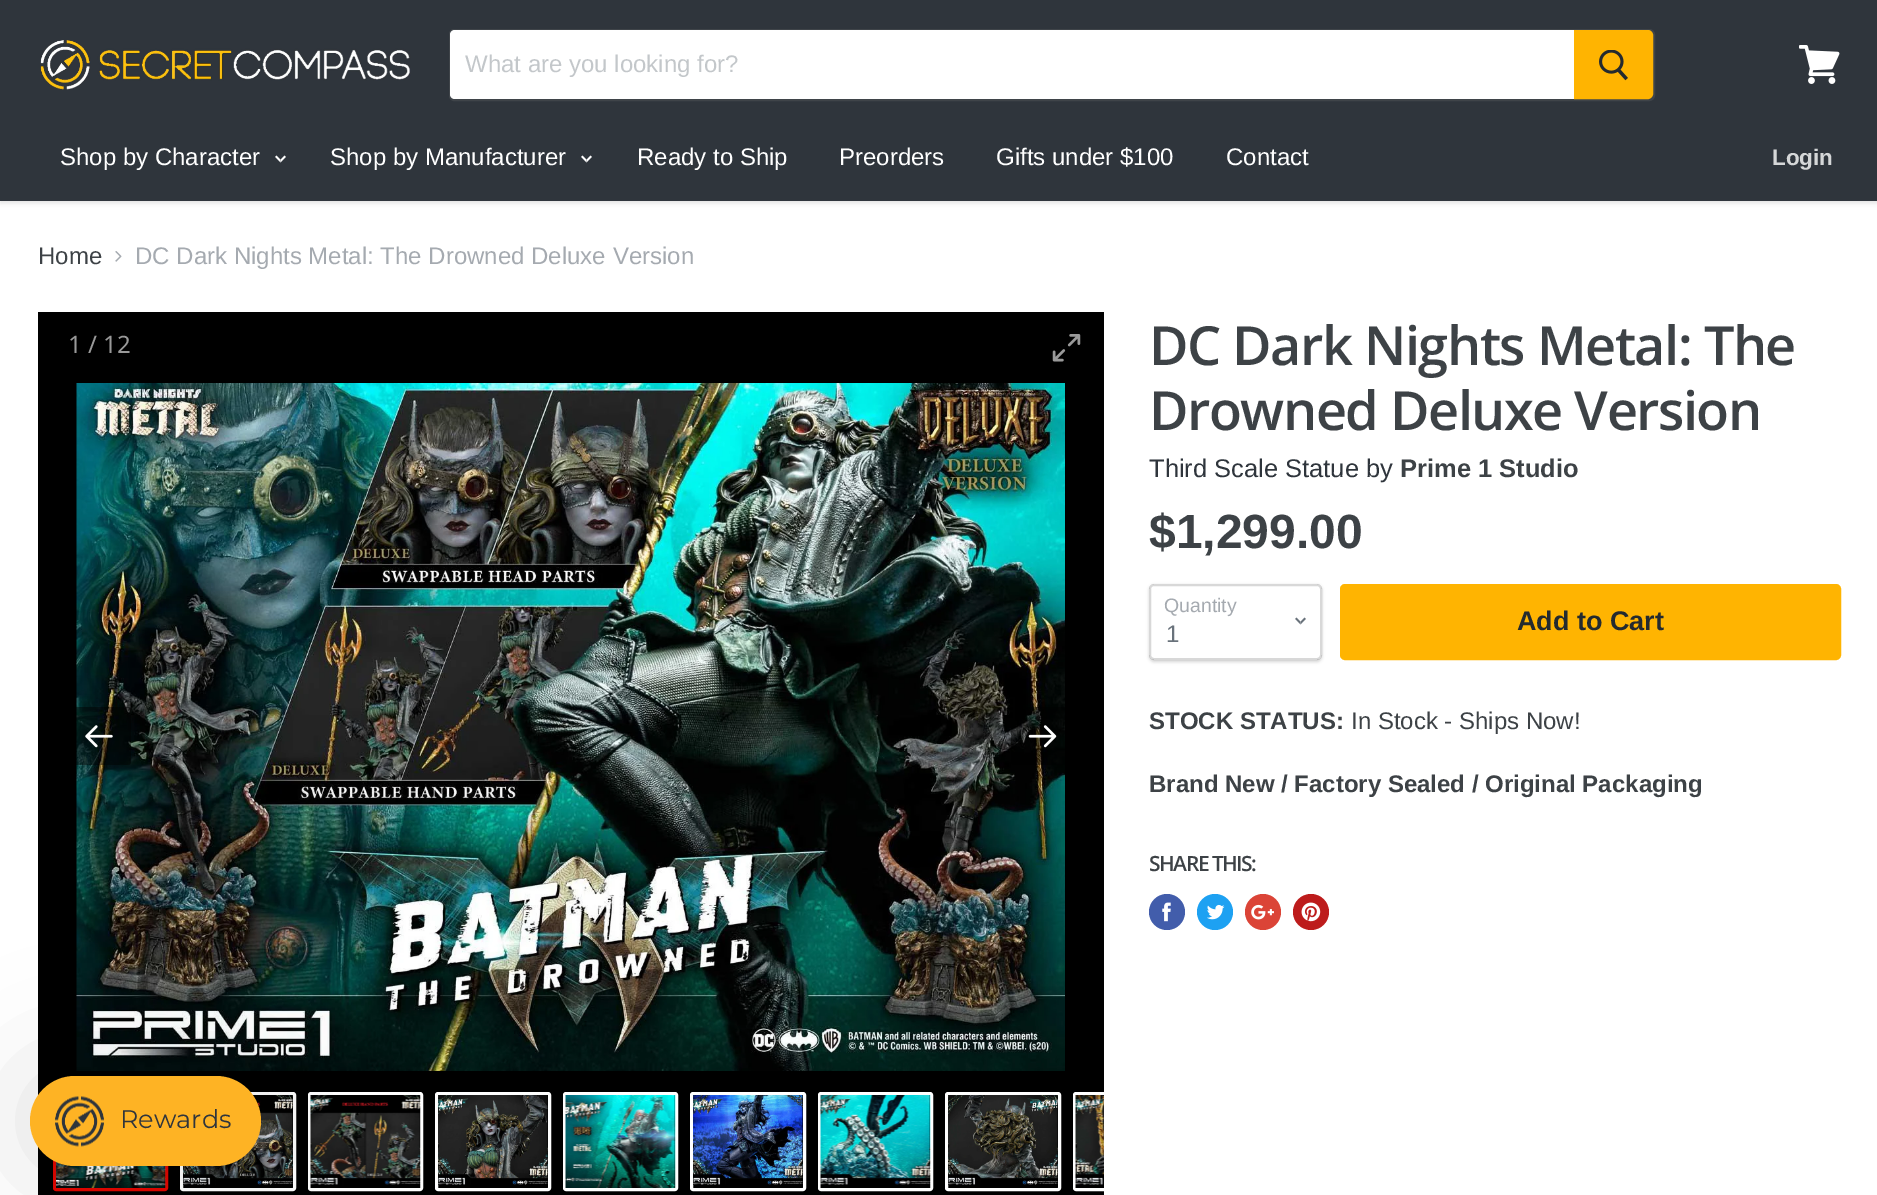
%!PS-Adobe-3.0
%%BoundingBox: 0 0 1877 1195
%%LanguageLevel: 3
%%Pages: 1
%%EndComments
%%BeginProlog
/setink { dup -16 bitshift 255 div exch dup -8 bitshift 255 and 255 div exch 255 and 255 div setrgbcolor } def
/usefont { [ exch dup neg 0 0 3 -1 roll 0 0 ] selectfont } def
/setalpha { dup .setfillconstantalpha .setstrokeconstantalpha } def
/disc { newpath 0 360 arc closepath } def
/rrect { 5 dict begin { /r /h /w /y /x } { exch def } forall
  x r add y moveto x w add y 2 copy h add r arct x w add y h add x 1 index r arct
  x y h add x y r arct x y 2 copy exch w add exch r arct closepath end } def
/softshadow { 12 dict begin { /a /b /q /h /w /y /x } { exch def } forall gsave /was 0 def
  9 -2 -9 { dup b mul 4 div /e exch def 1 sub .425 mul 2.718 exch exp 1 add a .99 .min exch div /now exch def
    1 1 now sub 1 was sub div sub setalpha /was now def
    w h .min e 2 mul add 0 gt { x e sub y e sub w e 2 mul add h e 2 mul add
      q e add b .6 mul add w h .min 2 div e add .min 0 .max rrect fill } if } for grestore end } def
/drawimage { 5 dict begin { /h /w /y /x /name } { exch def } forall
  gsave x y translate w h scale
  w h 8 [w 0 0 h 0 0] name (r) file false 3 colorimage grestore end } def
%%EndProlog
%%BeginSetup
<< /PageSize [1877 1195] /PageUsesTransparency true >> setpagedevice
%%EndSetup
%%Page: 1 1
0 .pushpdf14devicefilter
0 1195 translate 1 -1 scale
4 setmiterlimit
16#FFFFFF setink
0 0 1877 1195 rectfill
16#7F7F7F setink
0 2 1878 201 0 3 0.25 softshadow
16#2F353C setink
0 0 1877 201 rectfill
(img1.raw) 40 40 371 50 drawimage
0.2 setalpha
16#7F7F7F setink
2 setlinewidth
454 30 moveto 1649 30 lineto 1652 30 1654 32 1654 35 curveto 1654 95 lineto 1654 98 1652 100 1649 100 curveto 454 100 lineto 452 100 450 98 450 96 curveto 450 34 lineto 450 32 452 30 454 30 curveto closepath stroke
1 setalpha
16#FFFFFF setink
455 30 moveto 1574 30 lineto 1574 99 lineto 455 99 lineto 452 99 450 97 450 94 curveto 450 35 lineto 450 32 452 30 455 30 curveto closepath fill
/LiberationSans-Regular 24 usefont
16#C3C7CA setink
465 72 moveto (What are you looking for?) show
16#FFB401 setink
1575 31 moveto 1648 31 lineto 1650 31 1652 33 1652 35 curveto 1652 94 lineto 1652 96 1650 98 1648 98 curveto 1575 98 lineto closepath gsave fill grestore
stroke
(img2.raw) 1599 50 29 31 drawimage
(img3.raw) 1799 45 41 39 drawimage
16#FFFFFF setink
60 165 moveto (Shop by Character) show
(img4.raw) 275 155 11 8 drawimage
330 165 moveto (Shop by Manufacturer) show
(img4.raw) 581 155 11 8 drawimage
[
    [(Ready to Ship) 637 165]
    [(Preorders) 839 165]
    [(Gifts under $100) 996 165]
    [(Contact) 1226 165]
] { aload pop moveto show } forall
/LiberationSans-Bold 22.5 usefont
16#D5D7D8 setink
1772 165 moveto (Login) show
/LiberationSans-Regular 24 usefont
16#3D4246 setink
38 264 moveto (Home) show
(img5.raw) 115 251 7 11 drawimage
16#A5AAB0 setink
135 264 moveto (DC Dark Nights Metal: The Drowned Deluxe Version) show
16#000000 setink
38 312 1066 883 rectfill
/NotoSans-Regular 24 usefont
16#999999 setink
68 353 moveto (1 / 12) show
(img6.raw) 1052 334 29 28 drawimage
(img7.raw) 76 383 989 688 drawimage
0.45 setalpha
16#000000 setink
68 707 63 58 3 rrect fill
1 setalpha
(img8.raw) 85 725 28 23 drawimage
0.45 setalpha
1011 707 63 58 3 rrect fill
1 setalpha
(img9.raw) 1028 725 29 23 drawimage
16#E10600 setink
3 setlinewidth
54.5 1093.5 112 96 1.5 rrect stroke
(img10.raw) 56 1161 110 27 drawimage
16#FFFFFF setink
181.5 1093.5 113 96 1.5 rrect stroke
(img11.raw) 183 1095 110 90 drawimage
309.5 1093.5 112 96 1.5 rrect stroke
(img12.raw) 310 1095 111 93 drawimage
436.5 1093.5 113 96 1.5 rrect stroke
(img13.raw) 438 1095 110 90 drawimage
564.5 1093.5 112 96 1.5 rrect stroke
(img14.raw) 565 1095 111 93 drawimage
691.5 1093.5 113 96 1.5 rrect stroke
(img15.raw) 693 1095 110 90 drawimage
819.5 1093.5 112 96 1.5 rrect stroke
(img16.raw) 820 1095 111 93 drawimage
946.5 1093.5 113 96 1.5 rrect stroke
(img17.raw) 948 1095 110 90 drawimage
gsave
38 1071 1066 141 rectclip
1074.5 1093.5 112 96 1.5 rrect stroke
grestore
(img18.raw) 1075 1095 29 93 drawimage
/OpenSans-SemiBold 54 usefont
16#3D4246 setink
1149 365 moveto -1.5 0 (DC Dark Nights Metal: The) ashow
1149 430 moveto -1.5 0 (Drowned Deluxe Version) ashow
/LiberationSans-Regular 25.5 usefont
16#2F353C setink
1149 477 moveto (Third Scale Statue by) show
/LiberationSans-Bold 25.5 usefont
16#3D4246 setink
1400 477 moveto (Prime 1 Studio) show
/LiberationSans-Bold 48 usefont
1149 548 moveto ($1,299.00) show
gsave
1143 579 moveto 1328 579 lineto 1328 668 lineto 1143 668 lineto closepath 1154 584 moveto 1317 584 lineto 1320 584 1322 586 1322 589 curveto 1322 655 lineto 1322 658 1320 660 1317 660 curveto 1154 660 lineto 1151 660 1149 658 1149 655 curveto 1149 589 lineto 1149 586 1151 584 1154 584 curveto closepath eoclip newpath
16#000000 setink
1149 585 173 77 5 1.5 0.15 softshadow
grestore
0.3 setalpha
16#7F7F7F setink
2 setlinewidth
1150 585 171 74 4 rrect stroke
/LiberationSans-Regular 19.5 usefont
1 setalpha
16#A5AAB0 setink
1164 612 moveto (Quantity) show
(img19.raw) 1295 617 11 8 drawimage
/LiberationSans-Regular 24 usefont
16#69727B setink
1166 642 moveto (1) show
16#FFB401 setink
1341 585 499 74 4 rrect gsave fill grestore
stroke
/LiberationSans-Bold 27 usefont
16#242A2F setink
1517 630 moveto (Add to Cart) show
/LiberationSans-Bold 24 usefont
16#3D4246 setink
1149 729 moveto (STOCK STATUS:) show
/LiberationSans-Regular 24 usefont
1351 729 moveto (In Stock - Ships Now!) show
/LiberationSans-Bold 24 usefont
1149 792 moveto (Brand New / Factory Sealed / Original Packaging) show
/OpenSans-SemiBold 21 usefont
1149 871 moveto -1.5 0 (SHARE THIS:) ashow
16#425DAB setink
1167 912 18 disc fill
(img20.raw) 1162 902 9 20 drawimage
16#1DA1F2 setink
1215 912 18 disc fill
(img21.raw) 1207 904 18 16 drawimage
16#DB4437 setink
1263 912 18 disc fill
(img22.raw) 1251 904 23 16 drawimage
16#BD1C1C setink
1311 912 18 disc fill
(img23.raw) 1301 902 20 20 drawimage
16#000000 setink
30 1076 231 90 45 60 0.12 softshadow
16#FEB324 setink
30 1076 231 90 45 rrect fill
(img24.raw) 55 1096 49 51 drawimage
/Montserrat-Regular 25.5 usefont
16#2F353C setink
120 1128 moveto (Rewards) show
.poppdf14devicefilter showpage
%%EOF
